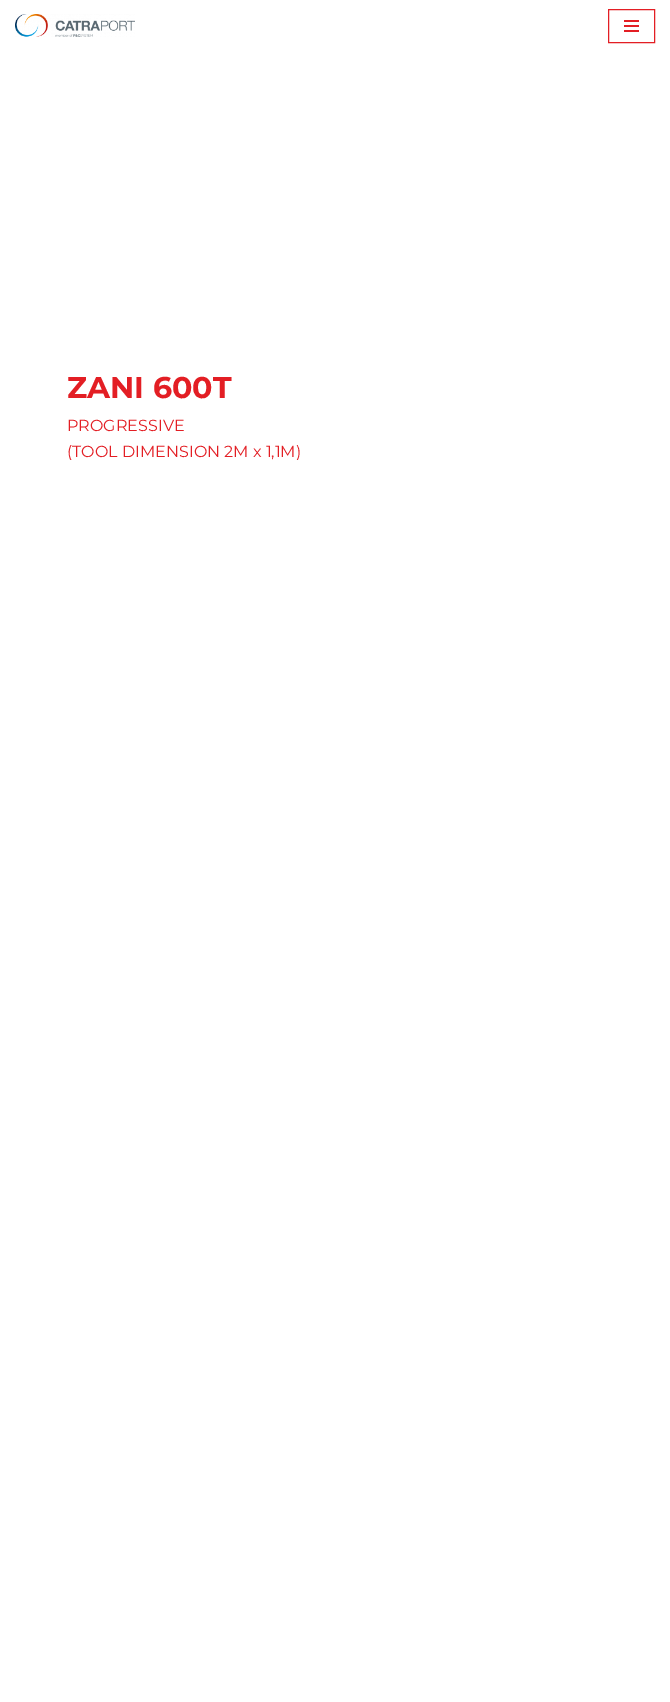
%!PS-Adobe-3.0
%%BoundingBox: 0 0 670 1702
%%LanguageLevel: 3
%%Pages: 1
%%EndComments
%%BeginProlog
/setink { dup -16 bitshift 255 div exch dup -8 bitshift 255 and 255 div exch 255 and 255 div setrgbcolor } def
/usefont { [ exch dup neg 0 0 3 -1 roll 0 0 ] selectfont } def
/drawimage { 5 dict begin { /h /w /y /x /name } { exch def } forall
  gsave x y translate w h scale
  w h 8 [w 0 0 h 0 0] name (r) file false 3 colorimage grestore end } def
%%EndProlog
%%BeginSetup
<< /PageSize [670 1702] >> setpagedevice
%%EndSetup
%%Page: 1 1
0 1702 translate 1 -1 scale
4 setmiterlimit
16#FFFFFF setink
0 0 670 1702 rectfill
(img1.raw) 15 14 120 23 drawimage
16#E31E24 setink
608.5 9.5 46 33 rectstroke
[
    [624 20 15 2 16#E31E24]
    [624 25 15 2 16#E31E24]
    [624 30 15 2 16#E31E24]
] { aload pop setink rectfill } forall
/Montserrat-Bold 30 usefont
67 398 moveto (ZANI 600T) show
/Montserrat-Regular 16 usefont
67 431 moveto (PROGRESSIVE) show
67 457 moveto (\(TOOL DIMENSION 2M x 1,1M\)) show
showpage
%%EOF
